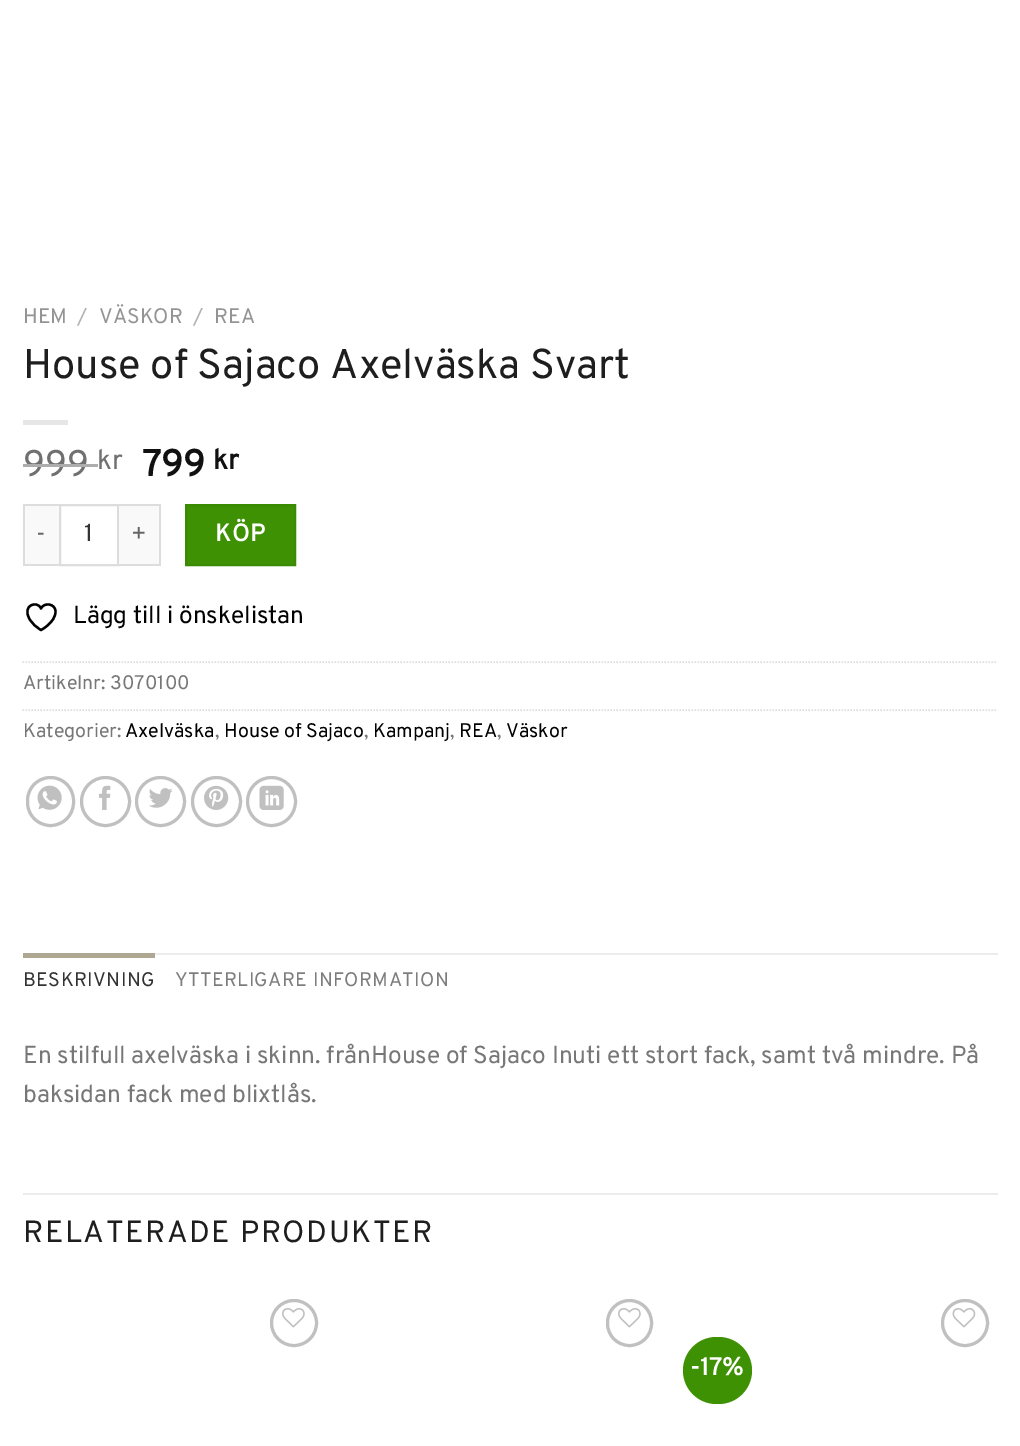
%!PS-Adobe-3.0
%%BoundingBox: 0 0 1020 1446
%%LanguageLevel: 3
%%Pages: 1
%%EndComments
%%BeginProlog
/setink { dup -16 bitshift 255 div exch dup -8 bitshift 255 and 255 div exch 255 and 255 div setrgbcolor } def
/usefont { [ exch dup neg 0 0 3 -1 roll 0 0 ] selectfont } def
/disc { newpath 0 360 arc closepath } def
/rrect { 5 dict begin { /r /h /w /y /x } { exch def } forall
  x r add y moveto x w add y 2 copy h add r arct x w add y h add x 1 index r arct
  x y h add x y r arct x y 2 copy exch w add exch r arct closepath end } def
/drawimage { 5 dict begin { /h /w /y /x /name } { exch def } forall
  gsave x y translate w h scale
  w h 8 [w 0 0 h 0 0] name (r) file false 3 colorimage grestore end } def
%%EndProlog
%%BeginSetup
<< /PageSize [1020 1446] >> setpagedevice
%%EndSetup
%%Page: 1 1
0 1446 translate 1 -1 scale
4 setmiterlimit
16#FFFFFF setink
0 0 1020 1446 rectfill
/Overpass-Regular 21 usefont
16#949494 setink
23 323 moveto (HEM) show
16#B2B2B2 setink
77 323 moveto (/) show
16#949494 setink
99 323 moveto (VÄSKOR) show
16#B2B2B2 setink
193 323 moveto (/) show
16#949494 setink
214 323 moveto (REA) show
/Overpass-Regular 41.6 usefont
16#1E1E1E setink
23 378 moveto (House of Sajaco Axelväska Svart) show
16#E6E6E6 setink
23 420 45 5 rectfill
/Overpass-Regular 37 usefont
16#707070 setink
23 476 moveto (999) show
16#ADADAD setink
23 464 75 3 rectfill
/Overpass-Regular 28 usefont
16#707070 setink
97 469 moveto (kr) show
/Overpass-Bold 37 usefont
16#111111 setink
142 476 moveto (799) show
/Overpass-Bold 28 usefont
213 469 moveto (kr) show
[
    [25 506 34 58 16#F9F9F9]
    [23 504 36 2 16#DDDDDD]
    [23 564 36 2 16#DDDDDD]
    [23 504 2 62 16#DDDDDD]
] { aload pop setink rectfill } forall
/Overpass-Regular 24 usefont
16#666666 setink
36 541 moveto 1 0 (-) ashow
16#DDDDDD setink
2 setlinewidth
60 505 58 60 rectstroke
/Overpass-Regular 24.5 usefont
16#333333 setink
84 541 moveto (1) show
[
    [119 506 40 58 16#F9F9F9]
    [119 504 42 2 16#DDDDDD]
    [159 504 2 62 16#DDDDDD]
    [119 564 42 2 16#DDDDDD]
] { aload pop setink rectfill } forall
/Overpass-Regular 24 usefont
16#666666 setink
131 541 moveto 1 0 (+) ashow
16#3D9102 setink
186 505 moveto 295 505 lineto 295 565 lineto 186 565 lineto closepath gsave fill grestore
16#3A8A02 setink
stroke
/Overpass-Bold 24 usefont
16#FFFFFF setink
215 541 moveto 1 0 (KÖP) ashow
/Overpass-Regular 24.5 usefont
16#000000 setink
73 623 moveto (Lägg till i önskelistan) show
2.3 setlinewidth
1 setlinecap
1 setlinejoin
55.5 611.5 moveto 55.5 603.5 44 602 41 608.5 curveto 37.5 600 21.5 605 29.5 619 curveto 32 623.5 36.5 627.5 41 630 curveto 41 630 55.5 622.5 55.5 611.5 curveto closepath stroke
16#DDDDDD setink
1.5 setlinewidth
0 setlinecap
0 setlinejoin
[1.5 1.5] 0 setdash
22.5 662 moveto 997.5 662 lineto stroke
/Overpass-Regular 19.6 usefont
16#777777 setink
23 689 moveto (Artikelnr: 3070100) show
16#DDDDDD setink
22.5 710 moveto 997.5 710 lineto stroke
16#777777 setink
23 737 moveto (Kategorier:) show
16#000000 setink
125 737 moveto (Axelväska) show
16#777777 setink
215 737 moveto (,) show
16#000000 setink
224 737 moveto (House of Sajaco) show
16#777777 setink
364 737 moveto (,) show
16#000000 setink
373 737 moveto (Kampanj) show
16#777777 setink
450 737 moveto (,) show
16#000000 setink
459 737 moveto (REA) show
16#777777 setink
497 737 moveto (,) show
16#000000 setink
506 737 moveto (Väskor) show
16#C0C0C0 setink
3 setlinewidth
[] 0 setdash
27.5 777.5 46 48 23 rrect stroke
(img1.raw) 37 785 25 25 drawimage
105.5 801.5 24 disc stroke
(img2.raw) 99 785 12 25 drawimage
160.5 801.5 24 disc stroke
(img3.raw) 149 788 24 20 drawimage
216.5 801.5 24 disc stroke
(img4.raw) 204 785 25 25 drawimage
271.5 801.5 24 disc stroke
(img5.raw) 259 785 25 25 drawimage
16#ECECEC setink
155 953 843 2 rectfill
16#AEA792 setink
23 953 132 5 rectfill
16#333333 setink
23 986 moveto 0.4 0 (BESKRIVNING) ashow
16#7D7D7D setink
175 986 moveto 0.4 0 (YTTERLIGARE INFORMATION) ashow
/Overpass-Regular 24.5 usefont
16#777777 setink
23 1063 moveto (En stilfull axelväska i skinn. frånHouse of Sajaco Inuti ett stort fack, samt två mindre. På) show
23 1102 moveto (baksidan fack med blixtlås.) show
16#ECECEC setink
23 1193 975 2 rectfill
/Overpass-Regular 30.6 usefont
16#1E1E1E setink
23 1242 moveto 1.5 0 (RELATERADE PRODUKTER) ashow
16#C0C0C0 setink
294 1323 22.5 disc stroke
(img6.raw) 282 1308 23 20 drawimage
607.5 1300.5 44 45 22 rrect stroke
(img6.raw) 618 1308 23 20 drawimage
965 1323 22.5 disc stroke
(img7.raw) 952 1308 24 20 drawimage
16#3D9102 setink
683 1337 69 67 33.5 rrect fill
/Overpass-Bold 24.5 usefont
16#FFFFFF setink
690 1375 moveto (-17%) show
showpage
%%EOF
